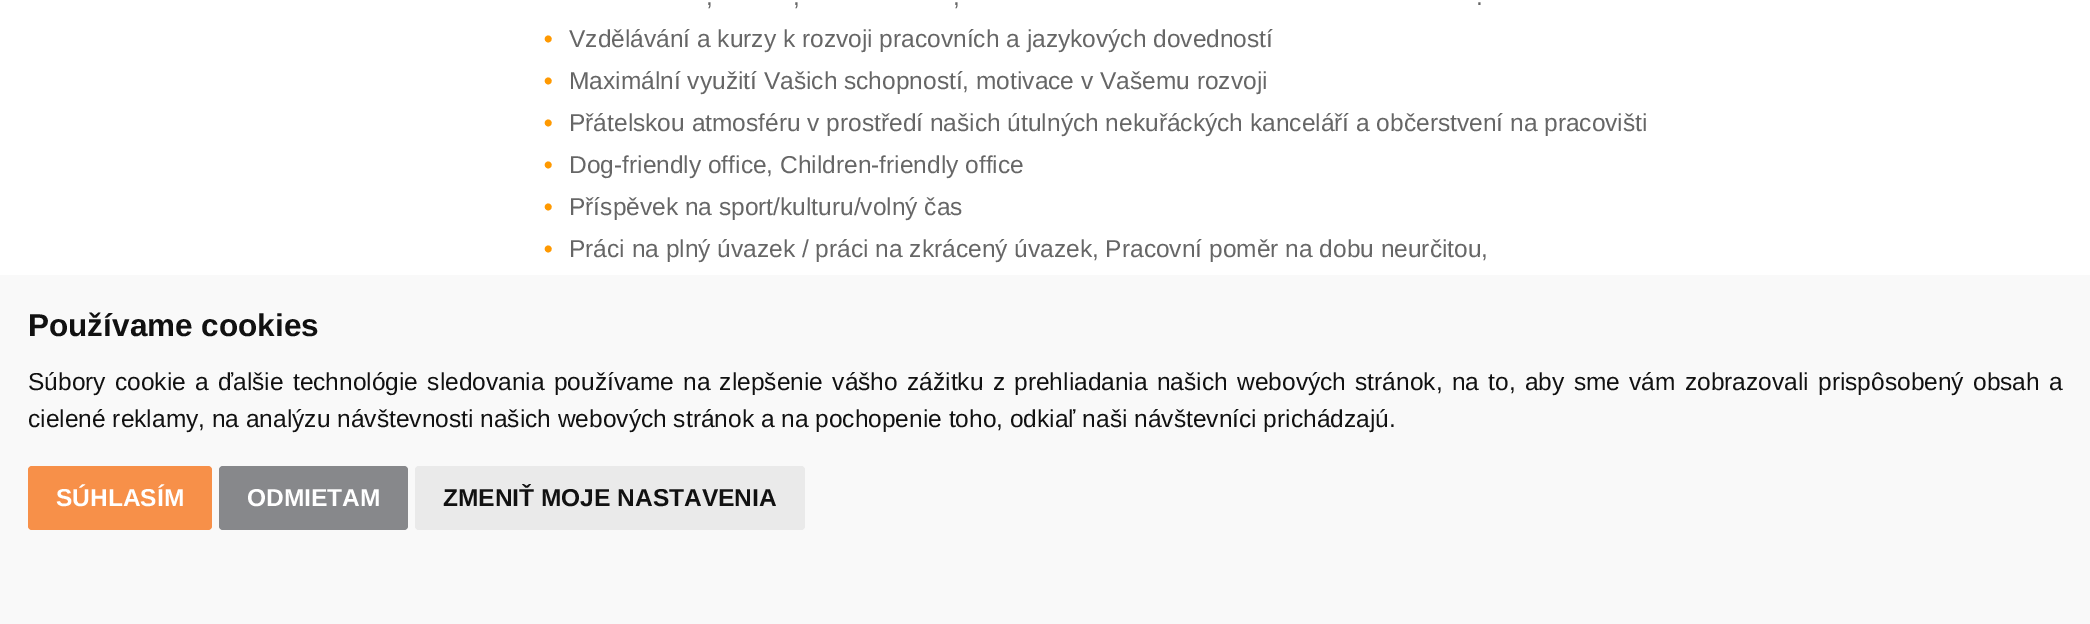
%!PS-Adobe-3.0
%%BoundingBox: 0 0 2090 624
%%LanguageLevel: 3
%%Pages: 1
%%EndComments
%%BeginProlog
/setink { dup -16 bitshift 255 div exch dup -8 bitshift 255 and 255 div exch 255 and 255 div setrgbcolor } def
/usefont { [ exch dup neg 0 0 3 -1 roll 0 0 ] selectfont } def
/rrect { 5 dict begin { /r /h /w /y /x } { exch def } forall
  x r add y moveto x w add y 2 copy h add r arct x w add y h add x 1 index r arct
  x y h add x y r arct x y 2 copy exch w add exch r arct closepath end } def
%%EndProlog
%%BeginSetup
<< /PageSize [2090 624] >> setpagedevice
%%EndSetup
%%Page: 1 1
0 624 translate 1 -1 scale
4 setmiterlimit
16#FFFFFF setink
0 0 2090 624 rectfill
/LiberationSans-Regular 24.5 usefont
16#666666 setink
[
    [(,) 706 5]
    [(,) 793 5]
    [(,) 953 5]
    [(.) 1476 5]
] { aload pop moveto show } forall
/LiberationSans-Bold 24.5 usefont
16#FF9900 setink
544 47 moveto (•) show
/LiberationSans-Regular 24.5 usefont
16#666666 setink
569 47 moveto (Vzdělávání a kurzy k rozvoji pracovních a jazykových dovedností) show
/LiberationSans-Bold 24.5 usefont
16#FF9900 setink
544 89 moveto (•) show
/LiberationSans-Regular 24.5 usefont
16#666666 setink
569 89 moveto (Maximální využití Vašich schopností, motivace v Vašemu rozvoji) show
/LiberationSans-Bold 24.5 usefont
16#FF9900 setink
544 131 moveto (•) show
/LiberationSans-Regular 24.5 usefont
16#666666 setink
569 131 moveto (Přátelskou atmosféru v prostředí našich útulných nekuřáckých kanceláří a občerstvení na pracovišti) show
/LiberationSans-Bold 24.5 usefont
16#FF9900 setink
544 173 moveto (•) show
/LiberationSans-Regular 24.5 usefont
16#666666 setink
569 173 moveto (Dog-friendly office, Children-friendly office) show
/LiberationSans-Bold 24.5 usefont
16#FF9900 setink
544 215 moveto (•) show
/LiberationSans-Regular 24.5 usefont
16#666666 setink
569 215 moveto (Příspěvek na sport/kulturu/volný čas) show
/LiberationSans-Bold 24.5 usefont
16#FF9900 setink
544 257 moveto (•) show
/LiberationSans-Regular 24.5 usefont
16#666666 setink
569 257 moveto (Práci na plný úvazek / práci na zkrácený úvazek, Pracovní poměr na dobu neurčitou,) show
16#F9F9F9 setink
0 275 2090 349 rectfill
/LiberationSans-Bold 31.5 usefont
16#111111 setink
28 336 moveto (Používame cookies) show
/LiberationSans-Regular 24.5 usefont
28 390 moveto 2.5 0 32 (Súbory cookie a ďalšie technológie sledovania používame na zlepšenie vášho zážitku z prehliadania našich webových stránok, na to, aby sme vám zobrazovali prispôsobený obsah a) widthshow
28 427 moveto (cielené reklamy, na analýzu návštevnosti našich webových stránok a na pochopenie toho, odkiaľ naši návštevníci prichádzajú.) show
16#F79049 setink
28 466 184 64 4 rrect fill
/LiberationSans-Bold 24.5 usefont
16#FFFFFF setink
56 506 moveto (SÚHLASÍM) show
16#87888B setink
219 466 189 64 4 rrect fill
16#FFFFFF setink
247 506 moveto (ODMIETAM) show
16#EAEAEA setink
415 466 390 64 4 rrect fill
16#111111 setink
443 506 moveto (ZMENIŤ MOJE NASTAVENIA) show
showpage
%%EOF
